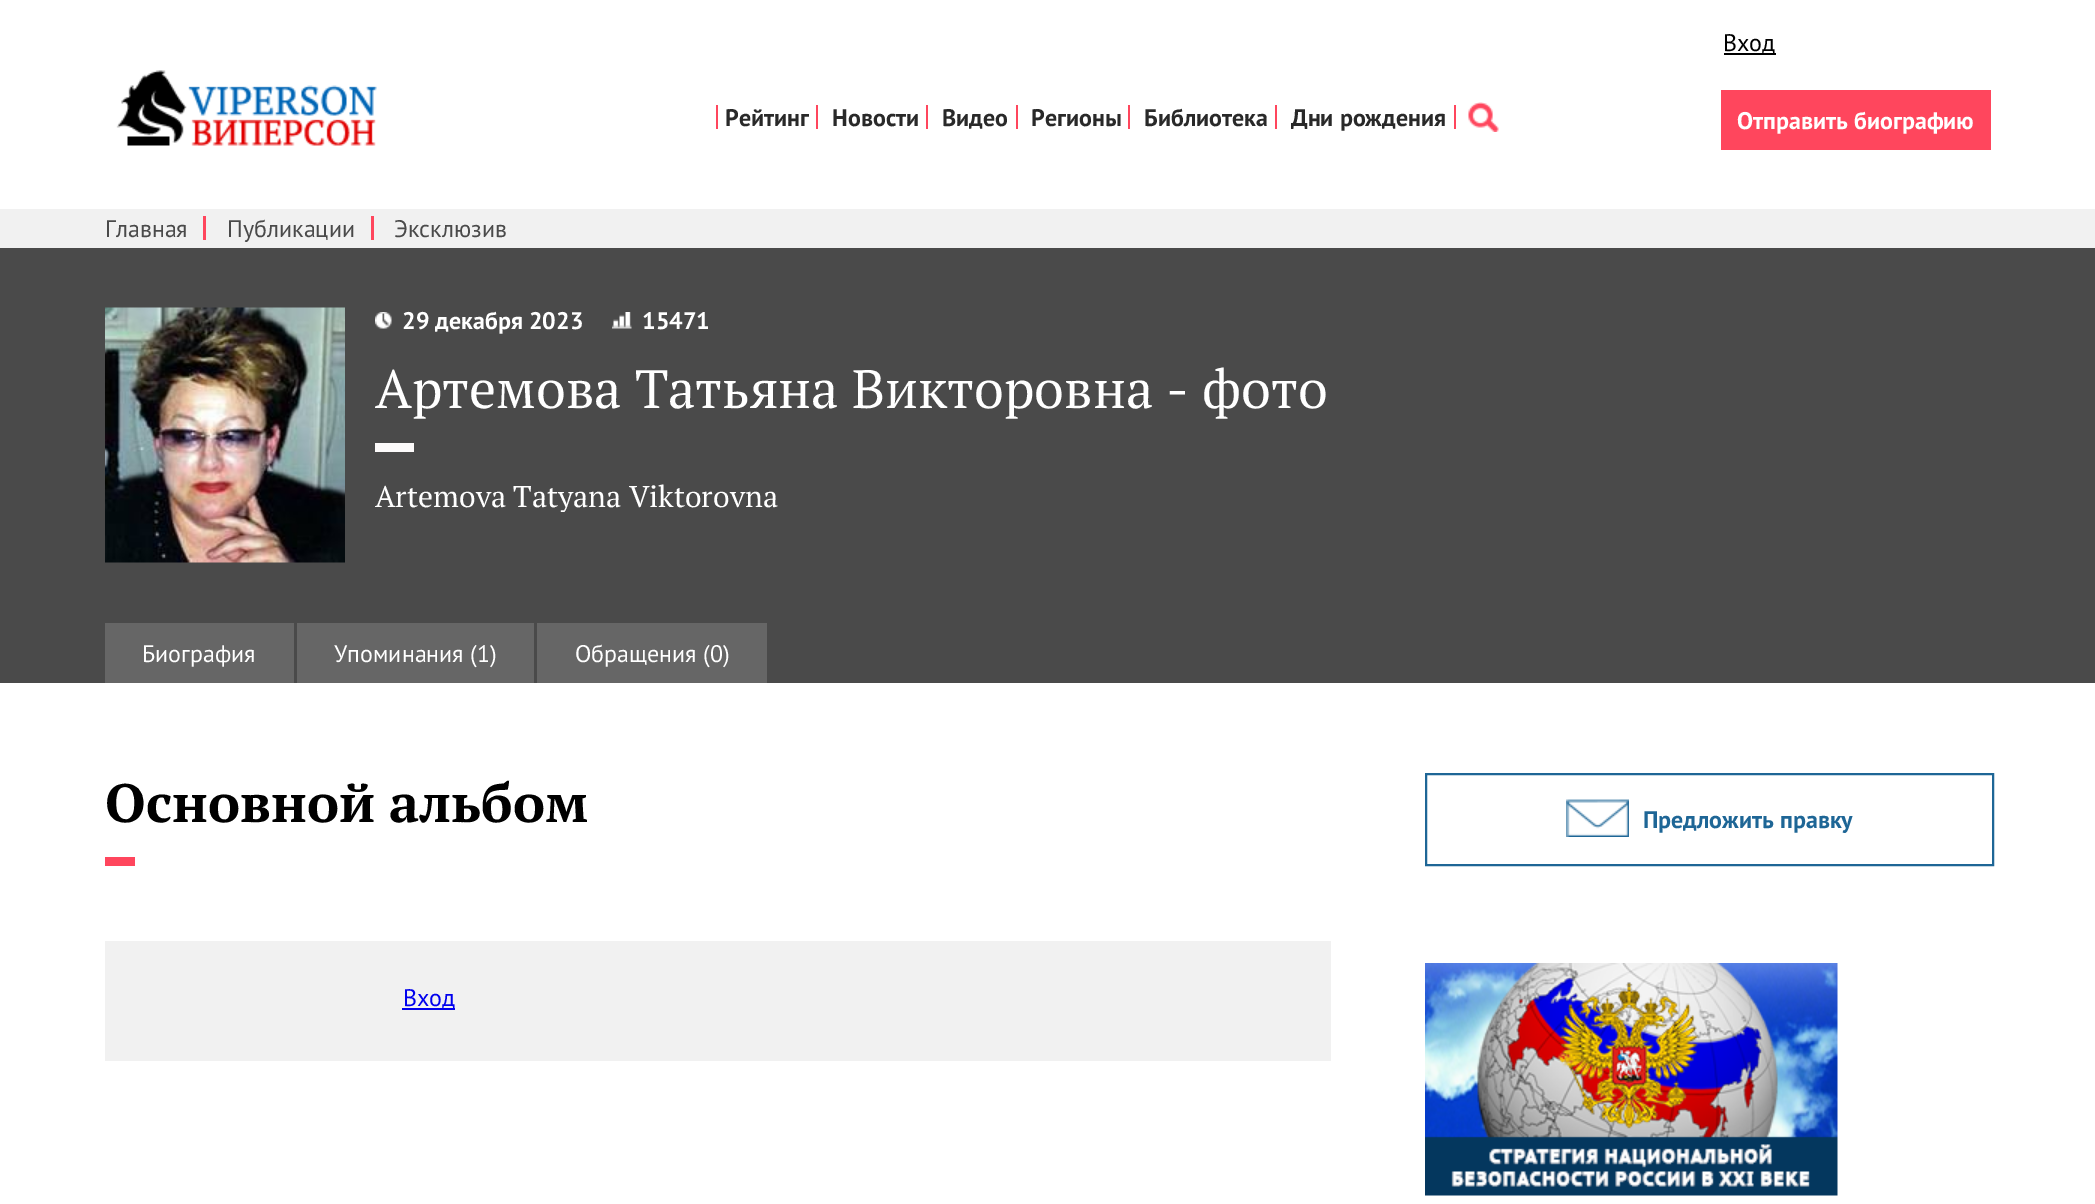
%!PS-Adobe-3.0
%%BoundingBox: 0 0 2095 1204
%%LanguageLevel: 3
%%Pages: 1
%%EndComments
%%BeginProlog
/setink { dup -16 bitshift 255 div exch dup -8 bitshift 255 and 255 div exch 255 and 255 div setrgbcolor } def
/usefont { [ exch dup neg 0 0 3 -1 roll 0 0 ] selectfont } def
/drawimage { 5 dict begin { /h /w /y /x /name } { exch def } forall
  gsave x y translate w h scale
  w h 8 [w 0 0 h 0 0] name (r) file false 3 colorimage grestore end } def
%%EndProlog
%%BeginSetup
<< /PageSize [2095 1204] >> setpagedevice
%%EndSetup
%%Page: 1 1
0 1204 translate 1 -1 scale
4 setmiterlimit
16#FFFFFF setink
0 0 2095 1204 rectfill
(img1.raw) 116 70 261 76 drawimage
16#000000 setink
1724 53 52 2 rectfill
/PTSans-Regular 24 usefont
1723 51 moveto (Вход) show
16#FF465D setink
816 105 2 24 rectfill
716 105 2 24 rectfill
/PTSans-Bold 24 usefont
16#292929 setink
725 126 moveto (Рейтинг) show
16#FF465D setink
926 105 2 24 rectfill
16#292929 setink
832 126 moveto (Новости) show
16#FF465D setink
1016 105 2 24 rectfill
16#292929 setink
942 126 moveto (Видео) show
16#FF465D setink
1128 105 2 24 rectfill
16#292929 setink
1031 126 moveto (Регионы) show
16#FF465D setink
1275 105 2 24 rectfill
16#292929 setink
1144 126 moveto (Библиотека) show
16#FF465D setink
1454 105 2 24 rectfill
16#292929 setink
1291 126 moveto (Дни рождения) show
(img2.raw) 1468 102 31 30 drawimage
16#FF465D setink
1721 90 270 60 rectfill
16#FFFFFF setink
1737 129 moveto (Отправить биографию) show
16#F1F1F1 setink
0 209 2095 39 rectfill
16#FF465D setink
203 216 3 24 rectfill
/PTSans-Regular 24 usefont
16#4A4A4A setink
105 237 moveto (Главная) show
16#FF465D setink
371 216 3 24 rectfill
16#4A4A4A setink
227 237 moveto (Публикации) show
394 237 moveto (Эксклюзив) show
0 248 2095 435 rectfill
(img3.raw) 105 307 240 256 drawimage
(img4.raw) 375 312 17 17 drawimage
/PTSans-Bold 24 usefont
16#FFFFFF setink
402 329 moveto (29 декабря 2023) show
(img5.raw) 612 312 20 17 drawimage
642 329 moveto (15471) show
/PTSerif-Regular 54 usefont
375 408 moveto (Артемова Татьяна Викторовна - фото) show
16#FDFBFB setink
375 443 39 9 rectfill
gsave
375 308 1616 204 rectclip
/PTSerif-Regular 30 usefont
16#FFFFFF setink
375 507 moveto (Artemova Tatyana Viktorovna) show
grestore
16#666666 setink
105 623 189 60 rectfill
/PTSans-Regular 24 usefont
16#FFFFFF setink
142 662 moveto (Биография) show
16#666666 setink
297 623 237 60 rectfill
16#FFFFFF setink
334 662 moveto (Упоминания \(1\)) show
16#666666 setink
537 623 230 60 rectfill
16#FFFFFF setink
575 662 moveto (Обращения \(0\)) show
/PTSerif-Bold 54 usefont
16#000000 setink
105 822 moveto (Основной альбом) show
[
    [105 857 30 9 16#FF465D]
    [105 941 1226 120 16#F1F1F1]
    [402 1008 53 2 16#0000EE]
] { aload pop setink rectfill } forall
/PTSans-Regular 24 usefont
403 1006 moveto (Вход) show
16#1E6696 setink
2 setlinewidth
1426 774 567 91 rectstroke
(img6.raw) 1566 799 63 38 drawimage
/PTSans-Bold 24 usefont
1643 828 moveto (Предложить правку) show
(img7.raw) 1425 963 413 233 drawimage
showpage
%%EOF
